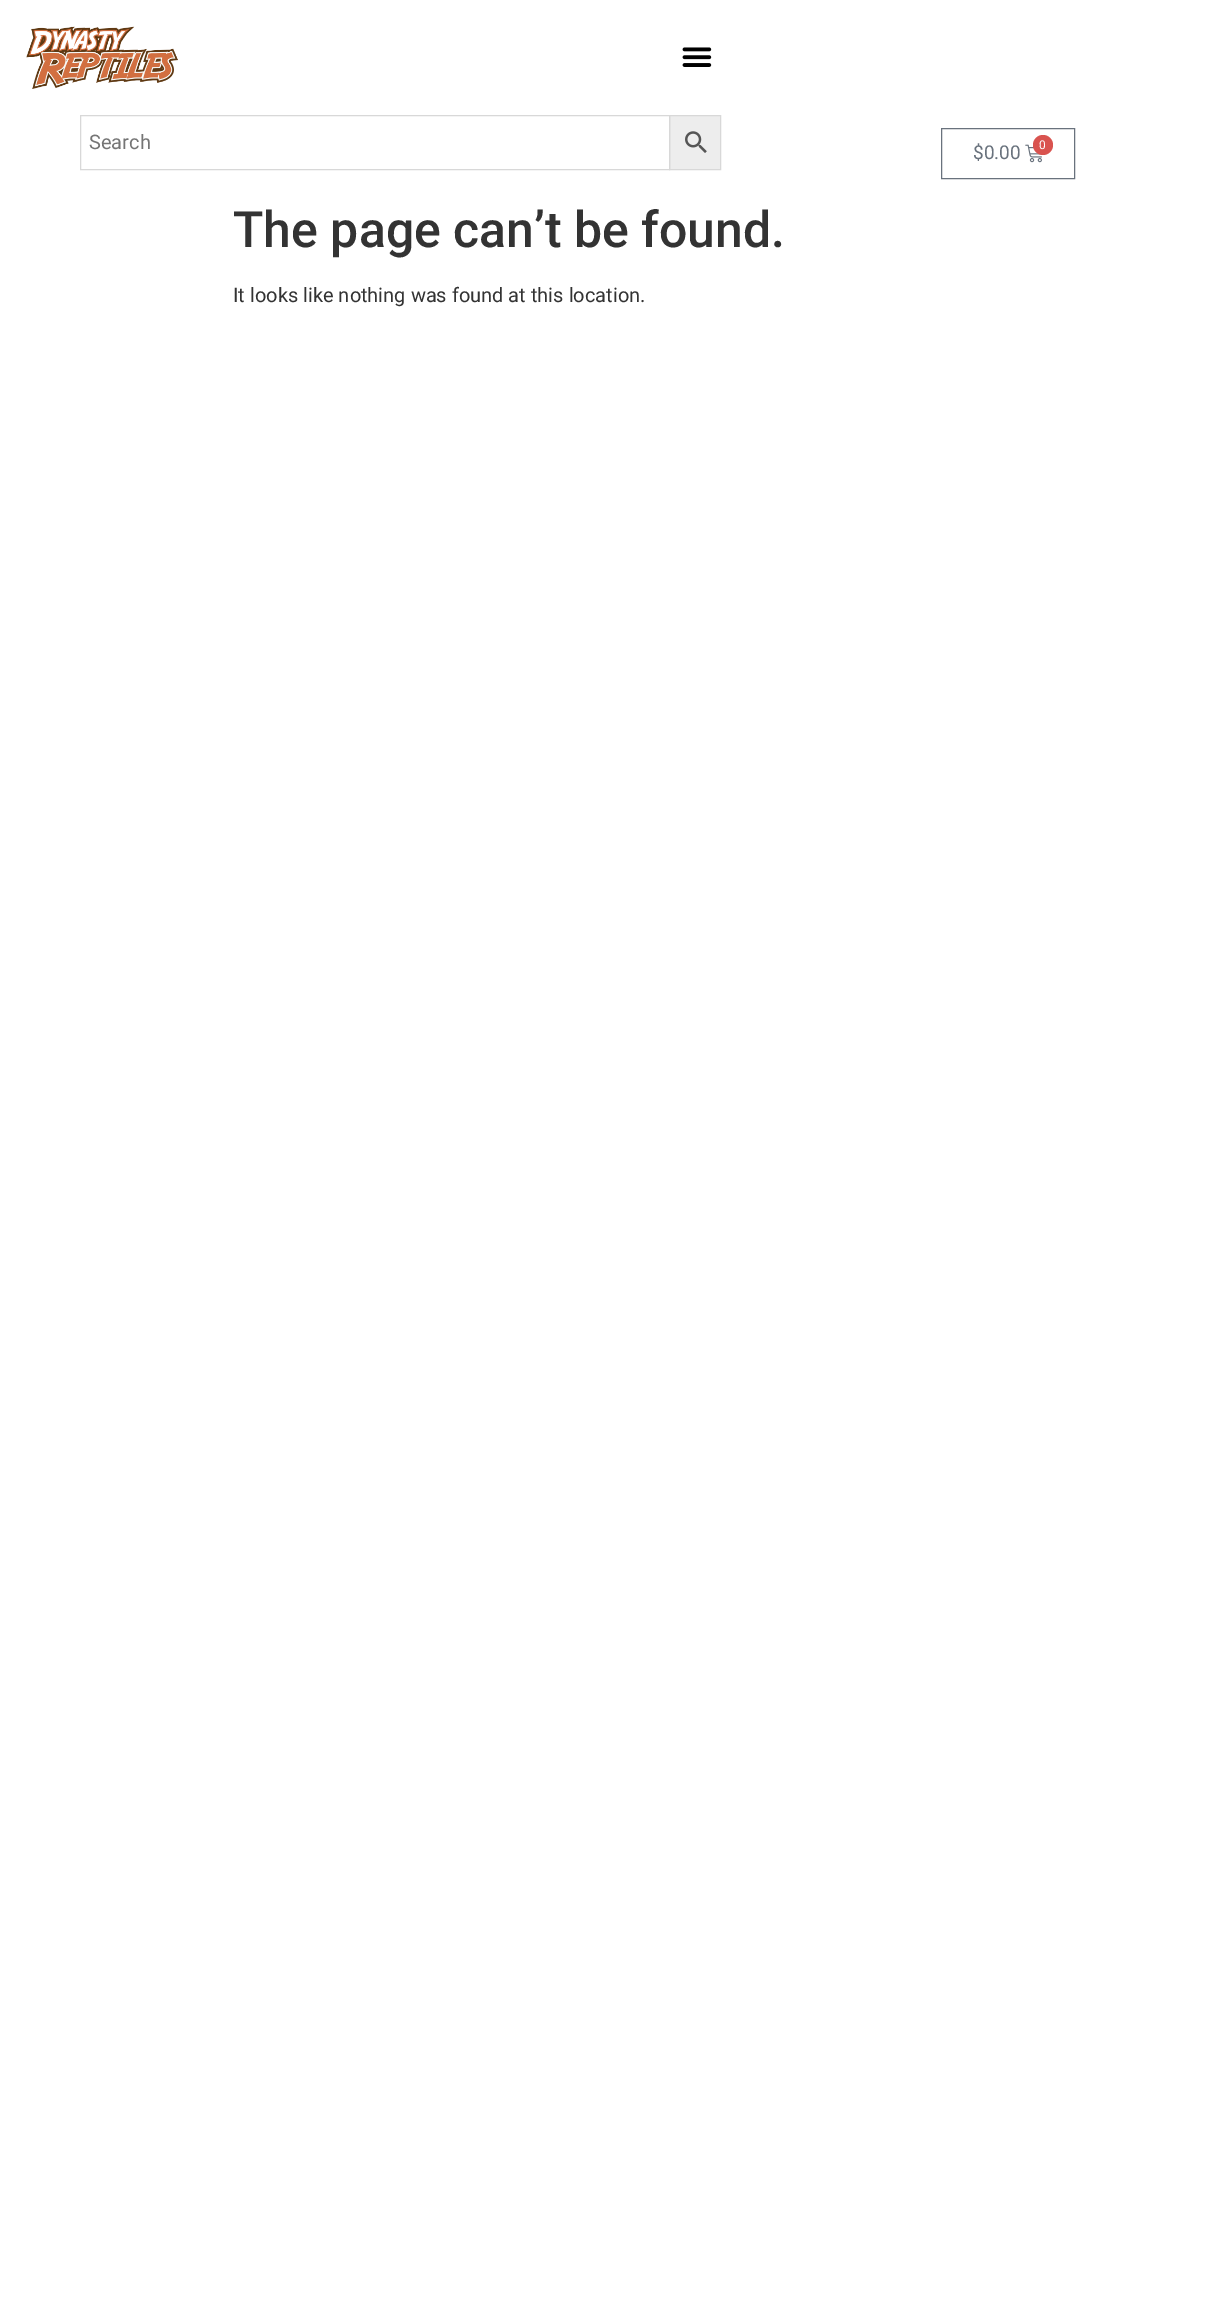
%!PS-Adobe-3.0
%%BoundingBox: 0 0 1215 2306
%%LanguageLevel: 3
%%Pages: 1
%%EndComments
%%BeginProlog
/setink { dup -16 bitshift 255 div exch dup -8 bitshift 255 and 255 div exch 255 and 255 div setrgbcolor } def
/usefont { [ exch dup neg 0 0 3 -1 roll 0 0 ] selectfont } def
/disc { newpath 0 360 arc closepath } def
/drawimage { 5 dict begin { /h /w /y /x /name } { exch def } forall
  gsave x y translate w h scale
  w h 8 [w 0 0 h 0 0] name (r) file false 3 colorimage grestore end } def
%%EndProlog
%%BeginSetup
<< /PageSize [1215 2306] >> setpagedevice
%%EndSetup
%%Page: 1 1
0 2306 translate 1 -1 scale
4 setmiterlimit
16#FFFFFF setink
0 0 1215 2306 rectfill
(img1.raw) 26 26 152 63 drawimage
(img2.raw) 682 47 30 20 drawimage
16#EDEDED setink
669.5 115.5 moveto 720.5 115.5 lineto 720.5 169.5 lineto 669.5 169.5 lineto closepath gsave fill grestore
16#D8D8D8 setink
stroke
80.5 115.5 589 54 rectstroke
/Roboto-Regular 20 usefont
16#757575 setink
89 149 moveto (Search) show
(img3.raw) 685 131 22 22 drawimage
16#69727D setink
941.5 128.5 133 50 rectstroke
/Roboto-Regular 19 usefont
973 159 moveto ($0.00) show
(img4.raw) 1025 144 17 19 drawimage
16#D9534F setink
1043 145 10 disc fill
/Roboto-Regular 12 usefont
16#FFFFFF setink
1039 149 moveto (0) show
/Roboto-Medium 50 usefont
16#333333 setink
233 247 moveto (The page can’t be found.) show
/Roboto-Regular 20 usefont
233 302 moveto (It looks like nothing was found at this location.) show
showpage
%%EOF
